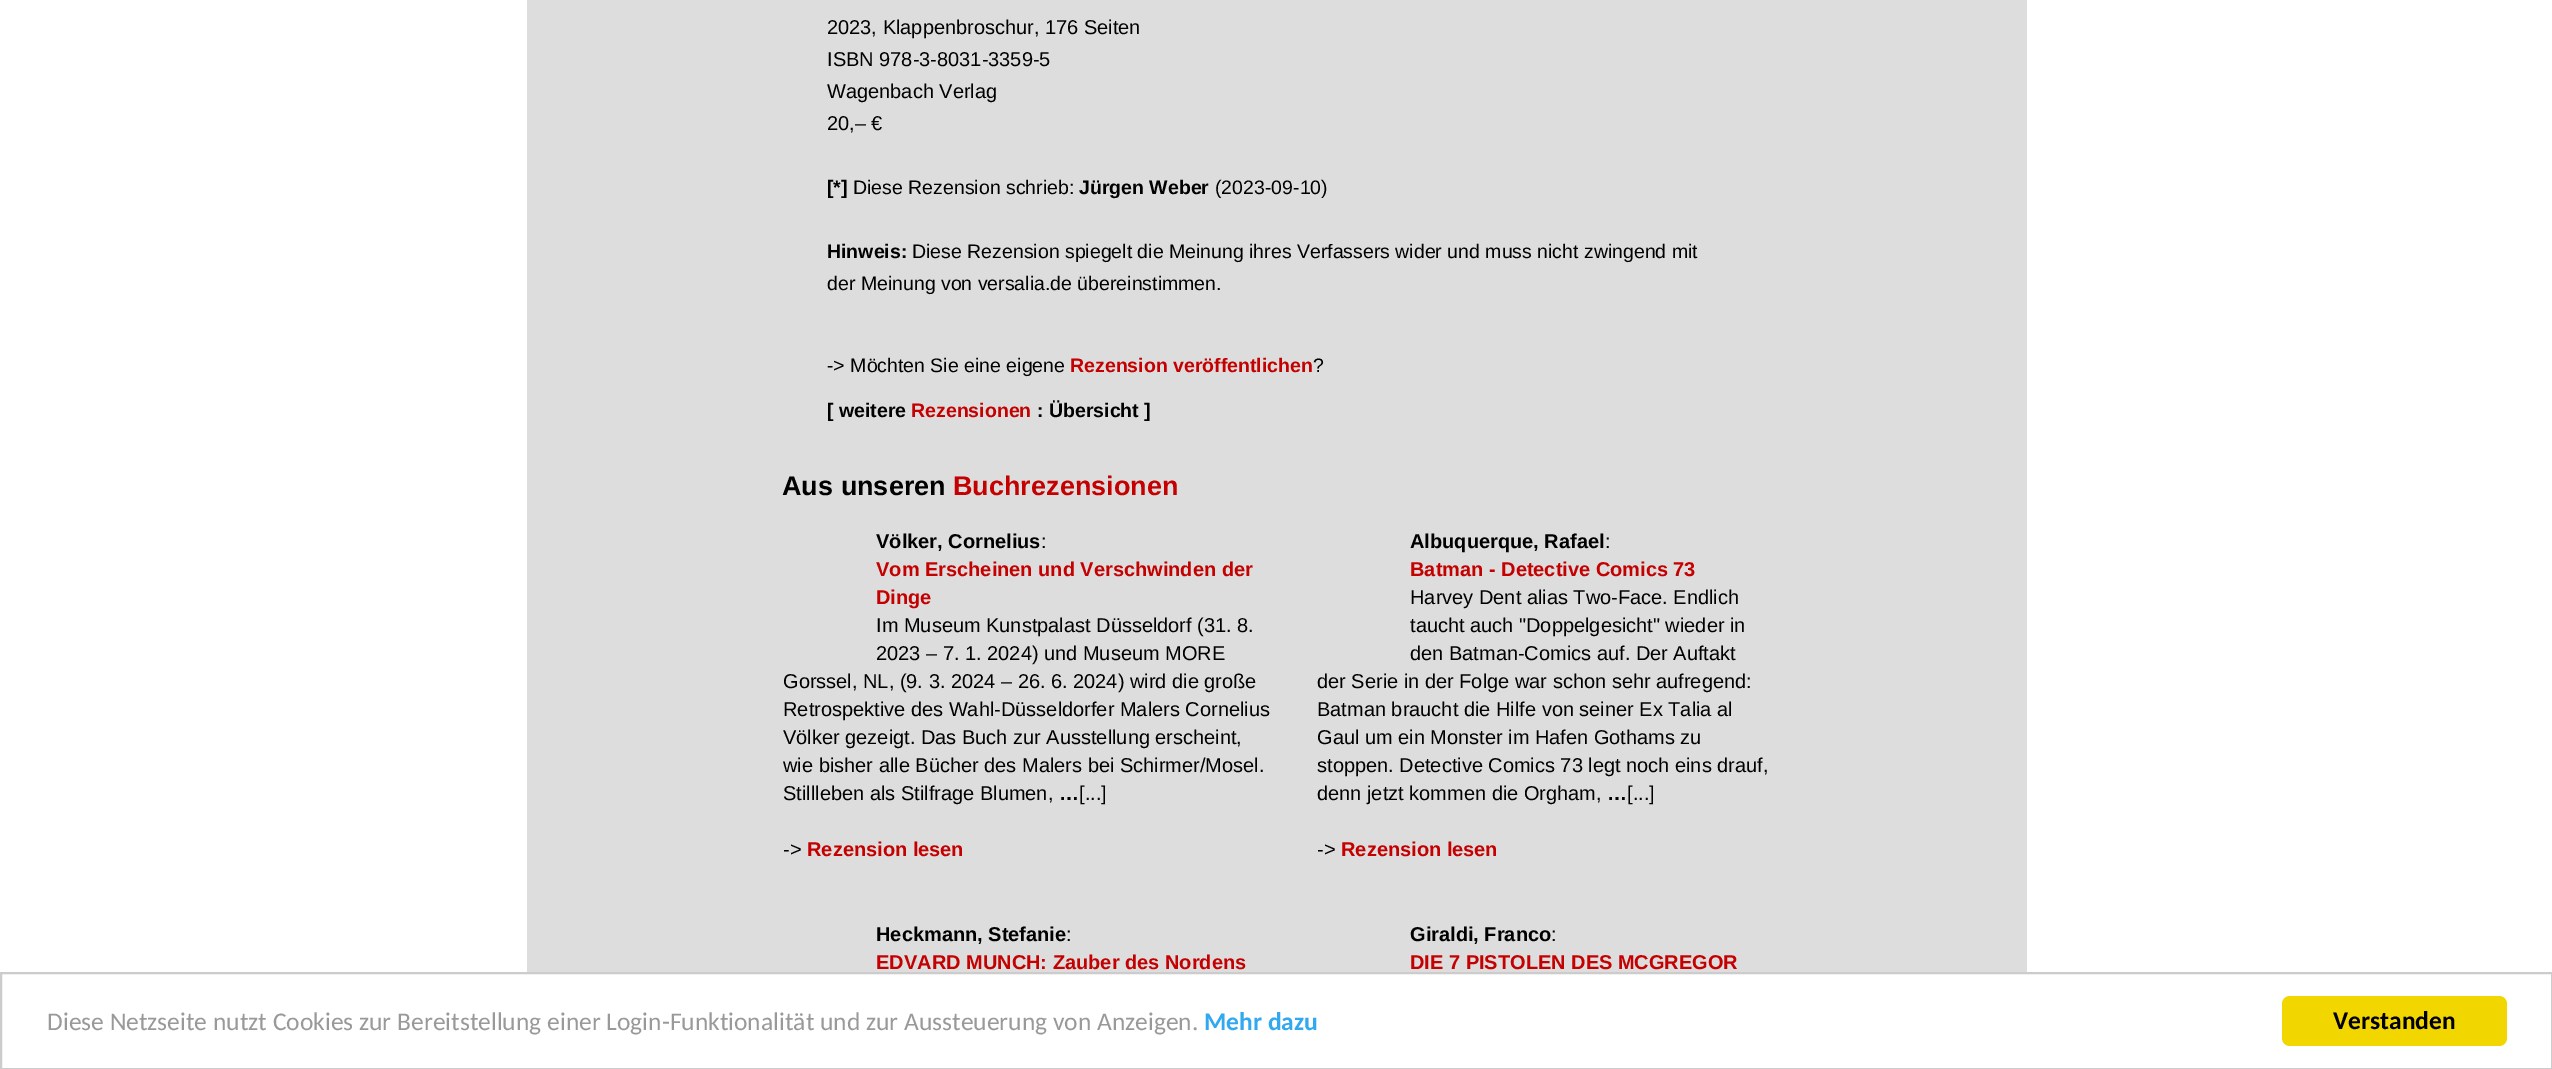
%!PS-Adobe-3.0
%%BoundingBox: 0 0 2552 1069
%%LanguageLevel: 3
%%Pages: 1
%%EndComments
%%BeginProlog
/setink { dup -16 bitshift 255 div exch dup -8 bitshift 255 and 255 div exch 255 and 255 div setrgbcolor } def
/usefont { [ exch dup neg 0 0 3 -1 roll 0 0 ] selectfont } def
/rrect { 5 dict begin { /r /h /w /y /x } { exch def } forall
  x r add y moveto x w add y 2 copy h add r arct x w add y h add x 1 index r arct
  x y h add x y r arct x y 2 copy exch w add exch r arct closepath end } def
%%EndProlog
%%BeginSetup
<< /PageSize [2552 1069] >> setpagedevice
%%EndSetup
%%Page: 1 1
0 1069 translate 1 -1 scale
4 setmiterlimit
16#FFFFFF setink
0 0 2552 1069 rectfill
16#DDDDDD setink
527 0 1500 972 rectfill
/LiberationSans-Regular 20 usefont
16#000000 setink
[
    [(2023, Klappenbroschur, 176 Seiten) 827 34]
    [(ISBN 978-3-8031-3359-5) 827 66]
    [(Wagenbach Verlag) 827 98]
    [(20,– €) 827 130]
] { aload pop moveto show } forall
/LiberationSans-Bold 19.5 usefont
827 194 moveto ([*]) show
/LiberationSans-Regular 19.5 usefont
853 194 moveto (Diese Rezension schrieb:) show
/LiberationSans-Bold 19.5 usefont
1079 194 moveto (Jürgen Weber) show
/LiberationSans-Regular 19.5 usefont
1215 194 moveto (\(2023-09-10\)) show
/LiberationSans-Bold 19.5 usefont
827 258 moveto (Hinweis:) show
/LiberationSans-Regular 19.5 usefont
[
    [(Diese Rezension spiegelt die Meinung ihres Verfassers wider und muss nicht zwingend mit) 912 258]
    [(der Meinung von versalia.de übereinstimmen.) 827 290]
    [(-> Möchten Sie eine eigene) 827 372]
] { aload pop moveto show } forall
/LiberationSans-Bold 19.5 usefont
16#C40000 setink
1070 372 moveto (Rezension veröffentlichen) show
/LiberationSans-Regular 19.5 usefont
16#000000 setink
1313 372 moveto (?) show
/LiberationSans-Bold 19.5 usefont
827 417 moveto ([ weitere) show
16#C40000 setink
911 417 moveto (Rezensionen) show
16#000000 setink
1037 417 moveto (: Übersicht ]) show
/LiberationSans-Bold 27 usefont
782 495 moveto (Aus unseren) show
16#C40000 setink
953 495 moveto (Buchrezensionen) show
/LiberationSans-Bold 20 usefont
16#000000 setink
876 548 moveto (Völker, Cornelius) show
/LiberationSans-Regular 20 usefont
1041 548 moveto (:) show
/LiberationSans-Bold 20 usefont
16#C40000 setink
876 576 moveto (Vom Erscheinen und Verschwinden der) show
876 604 moveto (Dinge) show
/LiberationSans-Regular 20 usefont
16#000000 setink
[
    [(Im Museum Kunstpalast Düsseldorf \(31. 8.) 876 632]
    [(2023 – 7. 1. 2024\) und Museum MORE) 876 660]
    [(Gorssel, NL, \(9. 3. 2024 – 26. 6. 2024\) wird die große) 783 688]
    [(Retrospektive des Wahl-Düsseldorfer Malers Cornelius) 783 716]
    [(Völker gezeigt. Das Buch zur Ausstellung erscheint,) 783 744]
    [(wie bisher alle Bücher des Malers bei Schirmer/Mosel.) 783 772]
    [(Stillleben als Stilfrage Blumen,) 783 800]
] { aload pop moveto show } forall
/LiberationSans-Bold 20 usefont
1059 800 moveto (…) show
/LiberationSans-Regular 20 usefont
1079 800 moveto ([...]) show
783 856 moveto (->) show
/LiberationSans-Bold 20 usefont
16#C40000 setink
807 856 moveto (Rezension lesen) show
16#000000 setink
1410 548 moveto (Albuquerque, Rafael) show
/LiberationSans-Regular 20 usefont
1605 548 moveto (:) show
/LiberationSans-Bold 20 usefont
16#C40000 setink
1410 576 moveto (Batman - Detective Comics 73) show
/LiberationSans-Regular 20 usefont
16#000000 setink
[
    [(Harvey Dent alias Two-Face. Endlich) 1410 604]
    [(taucht auch "Doppelgesicht" wieder in) 1410 632]
    [(den Batman-Comics auf. Der Auftakt) 1410 660]
    [(der Serie in der Folge war schon sehr aufregend:) 1317 688]
    [(Batman braucht die Hilfe von seiner Ex Talia al) 1317 716]
    [(Gaul um ein Monster im Hafen Gothams zu) 1317 744]
    [(stoppen. Detective Comics 73 legt noch eins drauf,) 1317 772]
    [(denn jetzt kommen die Orgham,) 1317 800]
] { aload pop moveto show } forall
/LiberationSans-Bold 20 usefont
1607 800 moveto (…) show
/LiberationSans-Regular 20 usefont
1627 800 moveto ([...]) show
1317 856 moveto (->) show
/LiberationSans-Bold 20 usefont
16#C40000 setink
1341 856 moveto (Rezension lesen) show
16#000000 setink
876 941 moveto (Heckmann, Stefanie) show
/LiberationSans-Regular 20 usefont
1066 941 moveto (:) show
/LiberationSans-Bold 20 usefont
16#C40000 setink
876 969 moveto (EDVARD MUNCH: Zauber des Nordens) show
16#000000 setink
1410 941 moveto (Giraldi, Franco) show
/LiberationSans-Regular 20 usefont
1551 941 moveto (:) show
/LiberationSans-Bold 20 usefont
16#C40000 setink
1410 969 moveto (DIE 7 PISTOLEN DES MCGREGOR) show
16#CCCCCC setink
2 setlinewidth
1 973 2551 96 rectstroke
/Carlito-Regular 25.5 usefont
16#999999 setink
47 1030 moveto (Diese Netzseite nutzt Cookies zur Bereitstellung einer Login-Funktionalität und zur Aussteuerung von Anzeigen.) show
/Carlito-Bold 25.5 usefont
16#31A8F0 setink
1204 1030 moveto (Mehr dazu) show
16#F1D600 setink
2282 996 225 50 8 rrect fill
16#000000 setink
2333 1029 moveto (Verstanden) show
showpage
%%EOF
